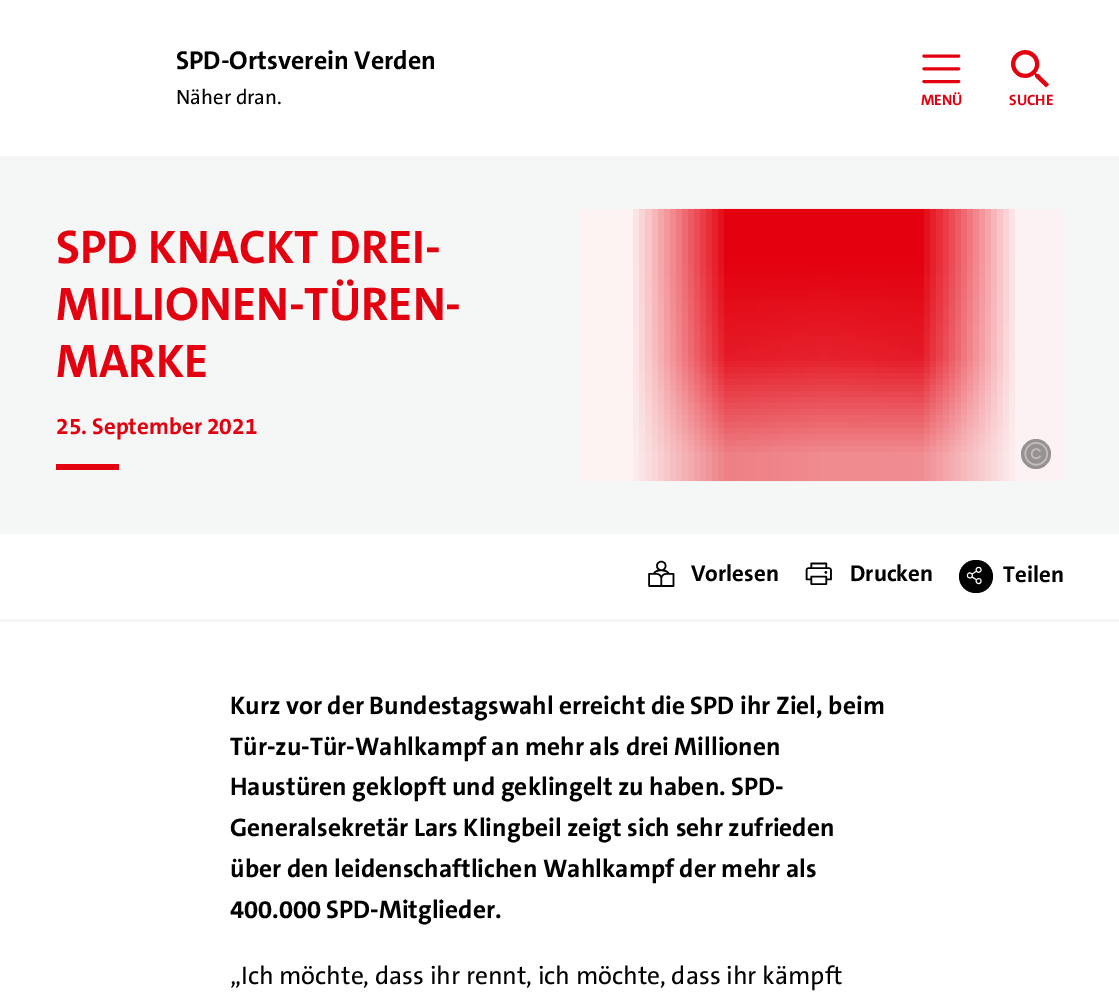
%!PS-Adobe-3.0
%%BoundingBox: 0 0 1119 997
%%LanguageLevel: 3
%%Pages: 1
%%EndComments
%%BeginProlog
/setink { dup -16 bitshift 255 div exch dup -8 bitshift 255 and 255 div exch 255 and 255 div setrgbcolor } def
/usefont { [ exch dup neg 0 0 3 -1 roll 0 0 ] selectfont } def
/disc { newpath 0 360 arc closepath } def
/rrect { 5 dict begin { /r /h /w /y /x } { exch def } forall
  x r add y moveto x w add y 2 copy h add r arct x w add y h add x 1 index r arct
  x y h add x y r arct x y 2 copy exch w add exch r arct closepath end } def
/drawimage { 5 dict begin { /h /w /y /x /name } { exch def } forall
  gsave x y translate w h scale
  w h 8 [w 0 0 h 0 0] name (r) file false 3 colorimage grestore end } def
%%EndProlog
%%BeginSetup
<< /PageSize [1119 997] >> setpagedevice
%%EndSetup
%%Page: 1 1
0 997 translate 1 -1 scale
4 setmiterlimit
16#FFFFFF setink
0 0 1119 997 rectfill
/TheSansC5-Bold 26 usefont
16#000000 setink
176 69 moveto (SPD-Ortsverein Verden) show
/TheSansC5-Medium 20.75 usefont
176 104 moveto (Näher dran.) show
(img1.raw) 922 54 39 30 drawimage
/TheSansC5-Bold 15 usefont
16#E3000F setink
921 105 moveto (MENÜ) show
(img2.raw) 1011 50 38 38 drawimage
1009 105 moveto (SUCHE) show
16#F5F6F6 setink
0 156 1119 378 rectfill
/TheSansC5-Bold 47.5 usefont
16#E3000F setink
[
    [(SPD KNACKT DREI-) 56 263]
    [(MILLIONEN-TÜREN-) 56 320]
    [(MARKE) 56 377]
] { aload pop moveto show } forall
/TheSansC5-Bold 23 usefont
56 434 moveto (25. September 2021) show
56 464 63 6 rectfill
(img3.raw) 579 208 485 274 drawimage
16#989192 setink
1036 454 15 disc fill
(img4.raw) 1024 442 24 24 drawimage
16#F5F6F6 setink
0 619 1119 3 rectfill
(img5.raw) 648 560 27 27 drawimage
16#000000 setink
691 581 moveto (Vorlesen) show
(img6.raw) 805 562 27 23 drawimage
850 581 moveto (Drucken) show
959 560 34 33 16.5 rrect fill
(img7.raw) 966 566 16 19 drawimage
1003 582 moveto (Teilen) show
/TheSansC5-Bold 25.5 usefont
[
    [(Kurz vor der Bundestagswahl erreicht die SPD ihr Ziel, beim) 230 714]
    [(Tür-zu-Tür-Wahlkampf an mehr als drei Millionen) 230 755]
    [(Haustüren geklopft und geklingelt zu haben. SPD-) 230 795]
    [(Generalsekretär Lars Klingbeil zeigt sich sehr zufrieden) 230 836]
    [(über den leidenschaftlichen Wahlkampf der mehr als) 230 877]
    [(400.000 SPD-Mitglieder.) 230 918]
] { aload pop moveto show } forall
/TheSansC5-Medium 25.5 usefont
230 984 moveto („Ich möchte, dass ihr rennt, ich möchte, dass ihr kämpft) show
showpage
%%EOF
